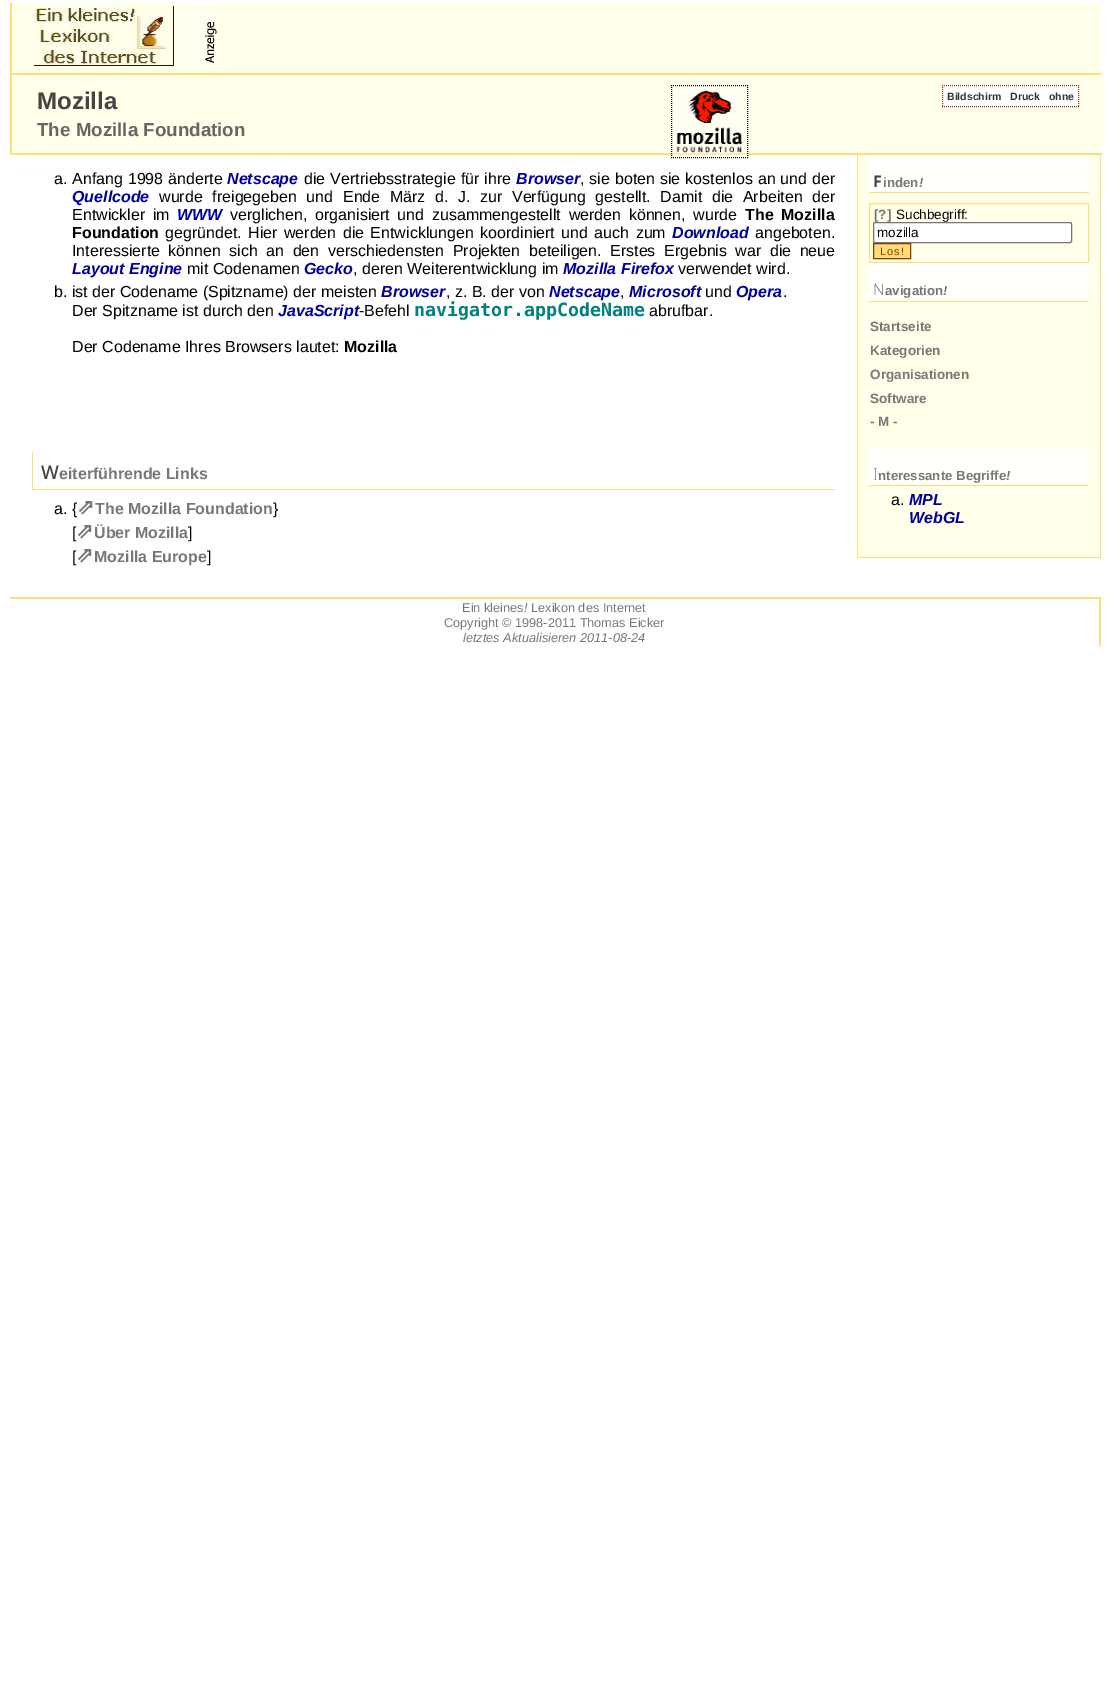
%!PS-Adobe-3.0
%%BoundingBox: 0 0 1118 1697
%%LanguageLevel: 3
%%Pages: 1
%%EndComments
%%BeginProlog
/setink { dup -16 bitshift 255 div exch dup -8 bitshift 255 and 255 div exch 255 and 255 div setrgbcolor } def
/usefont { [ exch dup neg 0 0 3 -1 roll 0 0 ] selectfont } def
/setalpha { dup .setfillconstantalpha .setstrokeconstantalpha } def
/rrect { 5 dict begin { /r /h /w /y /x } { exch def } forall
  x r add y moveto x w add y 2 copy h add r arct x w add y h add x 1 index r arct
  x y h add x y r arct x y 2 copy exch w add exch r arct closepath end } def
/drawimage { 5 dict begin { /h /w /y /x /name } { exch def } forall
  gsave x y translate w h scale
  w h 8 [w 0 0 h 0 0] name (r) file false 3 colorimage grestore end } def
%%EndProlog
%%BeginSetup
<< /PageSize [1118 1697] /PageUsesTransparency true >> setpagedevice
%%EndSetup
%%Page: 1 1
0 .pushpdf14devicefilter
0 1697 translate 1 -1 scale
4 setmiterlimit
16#FFFFFF setink
0 0 1118 1697 rectfill
[
    [12 3 1089 70 16#FFFFEA]
    [10 73 1091 2 16#FFDD77]
    [10 3 2 72 16#FFDD77]
] { aload pop setink rectfill } forall
(img1.raw) 34 6 140 60 drawimage
(img2.raw) 178 6 40 60 drawimage
16#FFFFEA setink
12 75 1091 80 rectfill
16#FFDD77 setink
1103 155 moveto 10 155 lineto 12 153 lineto 1101 153 lineto closepath fill
10 75 2 80 rectfill
/LiberationSans-Bold 24 usefont
16#444444 setink
37 109 moveto (Mozilla) show
0.4 setalpha
16#FFFFFF setink
671 85 77 70 rectfill
1 setalpha
16#000000 setink
[1 1] 0 setdash
671 85.5 moveto 748 85.5 lineto stroke
747.5 85 moveto 747.5 158 lineto stroke
671 157.5 moveto 748 157.5 lineto stroke
671.5 85 moveto 671.5 158 lineto stroke
(img3.raw) 676 90 67 63 drawimage
16#FFFFFF setink
942 85 137 22 rectfill
16#8B3907 setink
942 85.5 moveto 1079 85.5 lineto stroke
1078.5 85 moveto 1078.5 107 lineto stroke
942 106.5 moveto 1079 106.5 lineto stroke
942.5 85 moveto 942.5 107 lineto stroke
/LiberationSans-Bold 10.5 usefont
16#333333 setink
[
    [(Bildschirm) 947 100]
    [(Druck) 1010 100]
    [(ohne) 1049 100]
] { aload pop moveto show } forall
/LiberationSans-Bold 18.75 usefont
16#666666 setink
37 136 moveto (The Mozilla Foundation) show
/LiberationSans-Regular 16 usefont
16#000000 setink
54 184 moveto (a.) show
72 184 moveto 0.5 0 32 (Anfang 1998 änderte) widthshow
/LiberationSans-BoldItalic 16 usefont
16#000099 setink
227 184 moveto (Netscape) show
/LiberationSans-Regular 16 usefont
16#000000 setink
304 184 moveto 0.5 0 32 (die Vertriebsstrategie für ihre) widthshow
/LiberationSans-BoldItalic 16 usefont
16#000099 setink
516 184 moveto (Browser) show
/LiberationSans-Regular 16 usefont
16#000000 setink
580 184 moveto 0.5 0 32 (, sie boten sie kostenlos an und der) widthshow
/LiberationSans-BoldItalic 16 usefont
16#000099 setink
72 202 moveto (Quellcode) show
/LiberationSans-Regular 16 usefont
16#000000 setink
159 202 moveto 5.25 0 32 (wurde freigegeben und Ende März) widthshow
435 202 moveto (d.) show
458 202 moveto (J.) show
480 202 moveto 5.25 0 32 (zur Verfügung gestellt. Damit die Arbeiten der) widthshow
72 220 moveto 3.25 0 32 (Entwickler im) widthshow
/LiberationSans-BoldItalic 16 usefont
16#000099 setink
177 220 moveto (WWW) show
/LiberationSans-Regular 16 usefont
16#000000 setink
230 220 moveto 3.25 0 32 (verglichen, organisiert und zusammengestellt werden können, wurde) widthshow
/LiberationSans-Bold 16 usefont
745 220 moveto 3.25 0 32 (The Mozilla) widthshow
72 238 moveto (Foundation) show
/LiberationSans-Regular 16 usefont
165 238 moveto 2 0 32 (gegründet. Hier werden die Entwicklungen koordiniert und auch zum) widthshow
/LiberationSans-BoldItalic 16 usefont
16#000099 setink
672 238 moveto (Download) show
/LiberationSans-Regular 16 usefont
16#000000 setink
755 238 moveto (angeboten.) show
72 256 moveto 4 0 32 (Interessierte können sich an den verschiedensten Projekten beteiligen. Erstes Ergebnis war die neue) widthshow
/LiberationSans-BoldItalic 16 usefont
16#000099 setink
72 274 moveto (Layout Engine) show
/LiberationSans-Regular 16 usefont
16#000000 setink
187 274 moveto (mit Codenamen) show
/LiberationSans-BoldItalic 16 usefont
16#000099 setink
304 274 moveto (Gecko) show
/LiberationSans-Regular 16 usefont
16#000000 setink
353 274 moveto (, deren Weiterentwicklung im) show
/LiberationSans-BoldItalic 16 usefont
16#000099 setink
563 274 moveto (Mozilla Firefox) show
/LiberationSans-Regular 16 usefont
16#000000 setink
678 274 moveto (verwendet wird.) show
54 297 moveto (b. ist der Codename \(Spitzname\) der meisten) show
/LiberationSans-BoldItalic 16 usefont
16#000099 setink
381 297 moveto (Browser) show
/LiberationSans-Regular 16 usefont
16#000000 setink
446 297 moveto (, z. B. der von) show
/LiberationSans-BoldItalic 16 usefont
16#000099 setink
549 297 moveto (Netscape) show
/LiberationSans-Regular 16 usefont
16#000000 setink
620 297 moveto (,) show
/LiberationSans-BoldItalic 16 usefont
16#000099 setink
629 297 moveto (Microsoft) show
/LiberationSans-Regular 16 usefont
16#000000 setink
705 297 moveto (und) show
/LiberationSans-BoldItalic 16 usefont
16#000099 setink
736 297 moveto (Opera) show
/LiberationSans-Regular 16 usefont
16#000000 setink
783 297 moveto (.) show
72 316 moveto (Der Spitzname ist durch den) show
/LiberationSans-BoldItalic 16 usefont
16#000099 setink
278 316 moveto (JavaScript) show
/LiberationSans-Regular 16 usefont
16#000000 setink
359 316 moveto (-Befehl) show
/DejaVuSansMono-Bold 18.25 usefont
16#008080 setink
414 316 moveto (navigator.appCodeName) show
/LiberationSans-Regular 16 usefont
16#000000 setink
649 316 moveto (abrufbar.) show
72 352 moveto (Der Codename Ihres Browsers lautet:) show
/LiberationSans-Bold 16 usefont
344 352 moveto (Mozilla) show
16#FFDD77 setink
32 489 803 1 rectfill
32 452 1 38 rectfill
/NotoSans-Medium 19 usefont
16#444444 setink
41 479 moveto (W) show
/LiberationSans-Bold 16 usefont
16#777777 setink
59 479 moveto (eiterführende Links) show
/LiberationSans-Regular 16 usefont
16#000000 setink
54 514 moveto (a. {) show
/DejaVuSans-Bold 21 usefont
16#777777 setink
77 514 moveto (⇗) show
/LiberationSans-Bold 16 usefont
95 514 moveto (The Mozilla Foundation) show
/LiberationSans-Regular 16 usefont
16#000000 setink
273 514 moveto (}) show
72 538 moveto ([) show
/DejaVuSans-Bold 21 usefont
16#777777 setink
76 538 moveto (⇗) show
/LiberationSans-Bold 16 usefont
94 538 moveto (Über Mozilla) show
/LiberationSans-Regular 16 usefont
16#000000 setink
188 538 moveto (]) show
72 562 moveto ([) show
/DejaVuSans-Bold 21 usefont
16#777777 setink
76 562 moveto (⇗) show
/LiberationSans-Bold 16 usefont
94 562 moveto (Mozilla Europe) show
/LiberationSans-Regular 16 usefont
16#000000 setink
207 562 moveto (]) show
[
    [858 155 242 402 16#FFFFEA]
    [1100 155 1 403 16#FFDD77]
    [857 557 244 1 16#FFDD77]
    [857 155 1 403 16#FFDD77]
    [869 155 220 37 16#FFFFFC]
    [869 192 220 1 16#FFDD77]
] { aload pop setink rectfill } forall
/NotoSans-Bold 16 usefont
16#444444 setink
873 187 moveto (F) show
/LiberationSans-Bold 13.25 usefont
16#777777 setink
883 187 moveto (inden) show
/LiberationSans-BoldItalic 13.25 usefont
919 187 moveto (!) show
16#FFDD77 setink
[] 0 setdash
869.5 203.5 219 59 rectstroke
/LiberationSans-Bold 13.5 usefont
16#777777 setink
874 219 moveto ([?]) show
/LiberationSans-Regular 13.5 usefont
16#000000 setink
896 219 moveto (Suchbegriff:) show
16#FFFFFF setink
873.5 222.5 198 20 1.5 rrect gsave fill grestore
16#767676 setink
stroke
16#000000 setink
877 237 moveto (mozilla) show
16#FFDD77 setink
873.5 243.5 moveto 910.5 243.5 lineto 910.5 258.5 lineto 873.5 258.5 lineto closepath gsave fill grestore
16#8B3907 setink
stroke
/LiberationSans-Regular 11 usefont
880 255 moveto 1 0 (Los!) ashow
16#FFFFFC setink
869 263 220 38 rectfill
16#FFDD77 setink
869 301 220 1 rectfill
/NotoSans-ExtraLight 16 usefont
16#444444 setink
873 295 moveto (N) show
/LiberationSans-Bold 13.25 usefont
16#777777 setink
885 295 moveto (avigation) show
/LiberationSans-BoldItalic 13.25 usefont
943 295 moveto (!) show
/LiberationSans-Bold 13.5 usefont
[
    [(Startseite) 870 331]
    [(Kategorien) 870 355]
    [(Organisationen) 870 379]
    [(Software) 870 403]
    [(- M -) 870 426]
] { aload pop moveto show } forall
16#FFFFFC setink
869 448 220 37 rectfill
16#FFDD77 setink
869 485 220 1 rectfill
/NotoSans-Thin 16 usefont
16#444444 setink
873 480 moveto (I) show
/LiberationSans-Bold 13.25 usefont
16#777777 setink
878 480 moveto (nteressante Begriffe) show
/LiberationSans-BoldItalic 13.25 usefont
1006 480 moveto (!) show
/LiberationSans-Regular 16 usefont
16#000000 setink
891 505 moveto (a.) show
/LiberationSans-BoldItalic 16 usefont
16#000099 setink
909 505 moveto (MPL) show
909 523 moveto (WebGL) show
16#FFDD77 setink
10 597 1091 2 rectfill
1099 597 2 49 rectfill
/LiberationSans-Regular 12.75 usefont
16#777777 setink
462 612 moveto (Ein kleines) show
/LiberationSans-Italic 12.75 usefont
524 612 moveto (!) show
/LiberationSans-Regular 12.75 usefont
531 612 moveto (Lexikon des Internet) show
444 627 moveto (Copyright © 1998-2011 Thomas Eicker) show
/LiberationSans-Italic 12.75 usefont
463 642 moveto (letztes Aktualisieren 2011-08-24) show
.poppdf14devicefilter showpage
%%EOF
